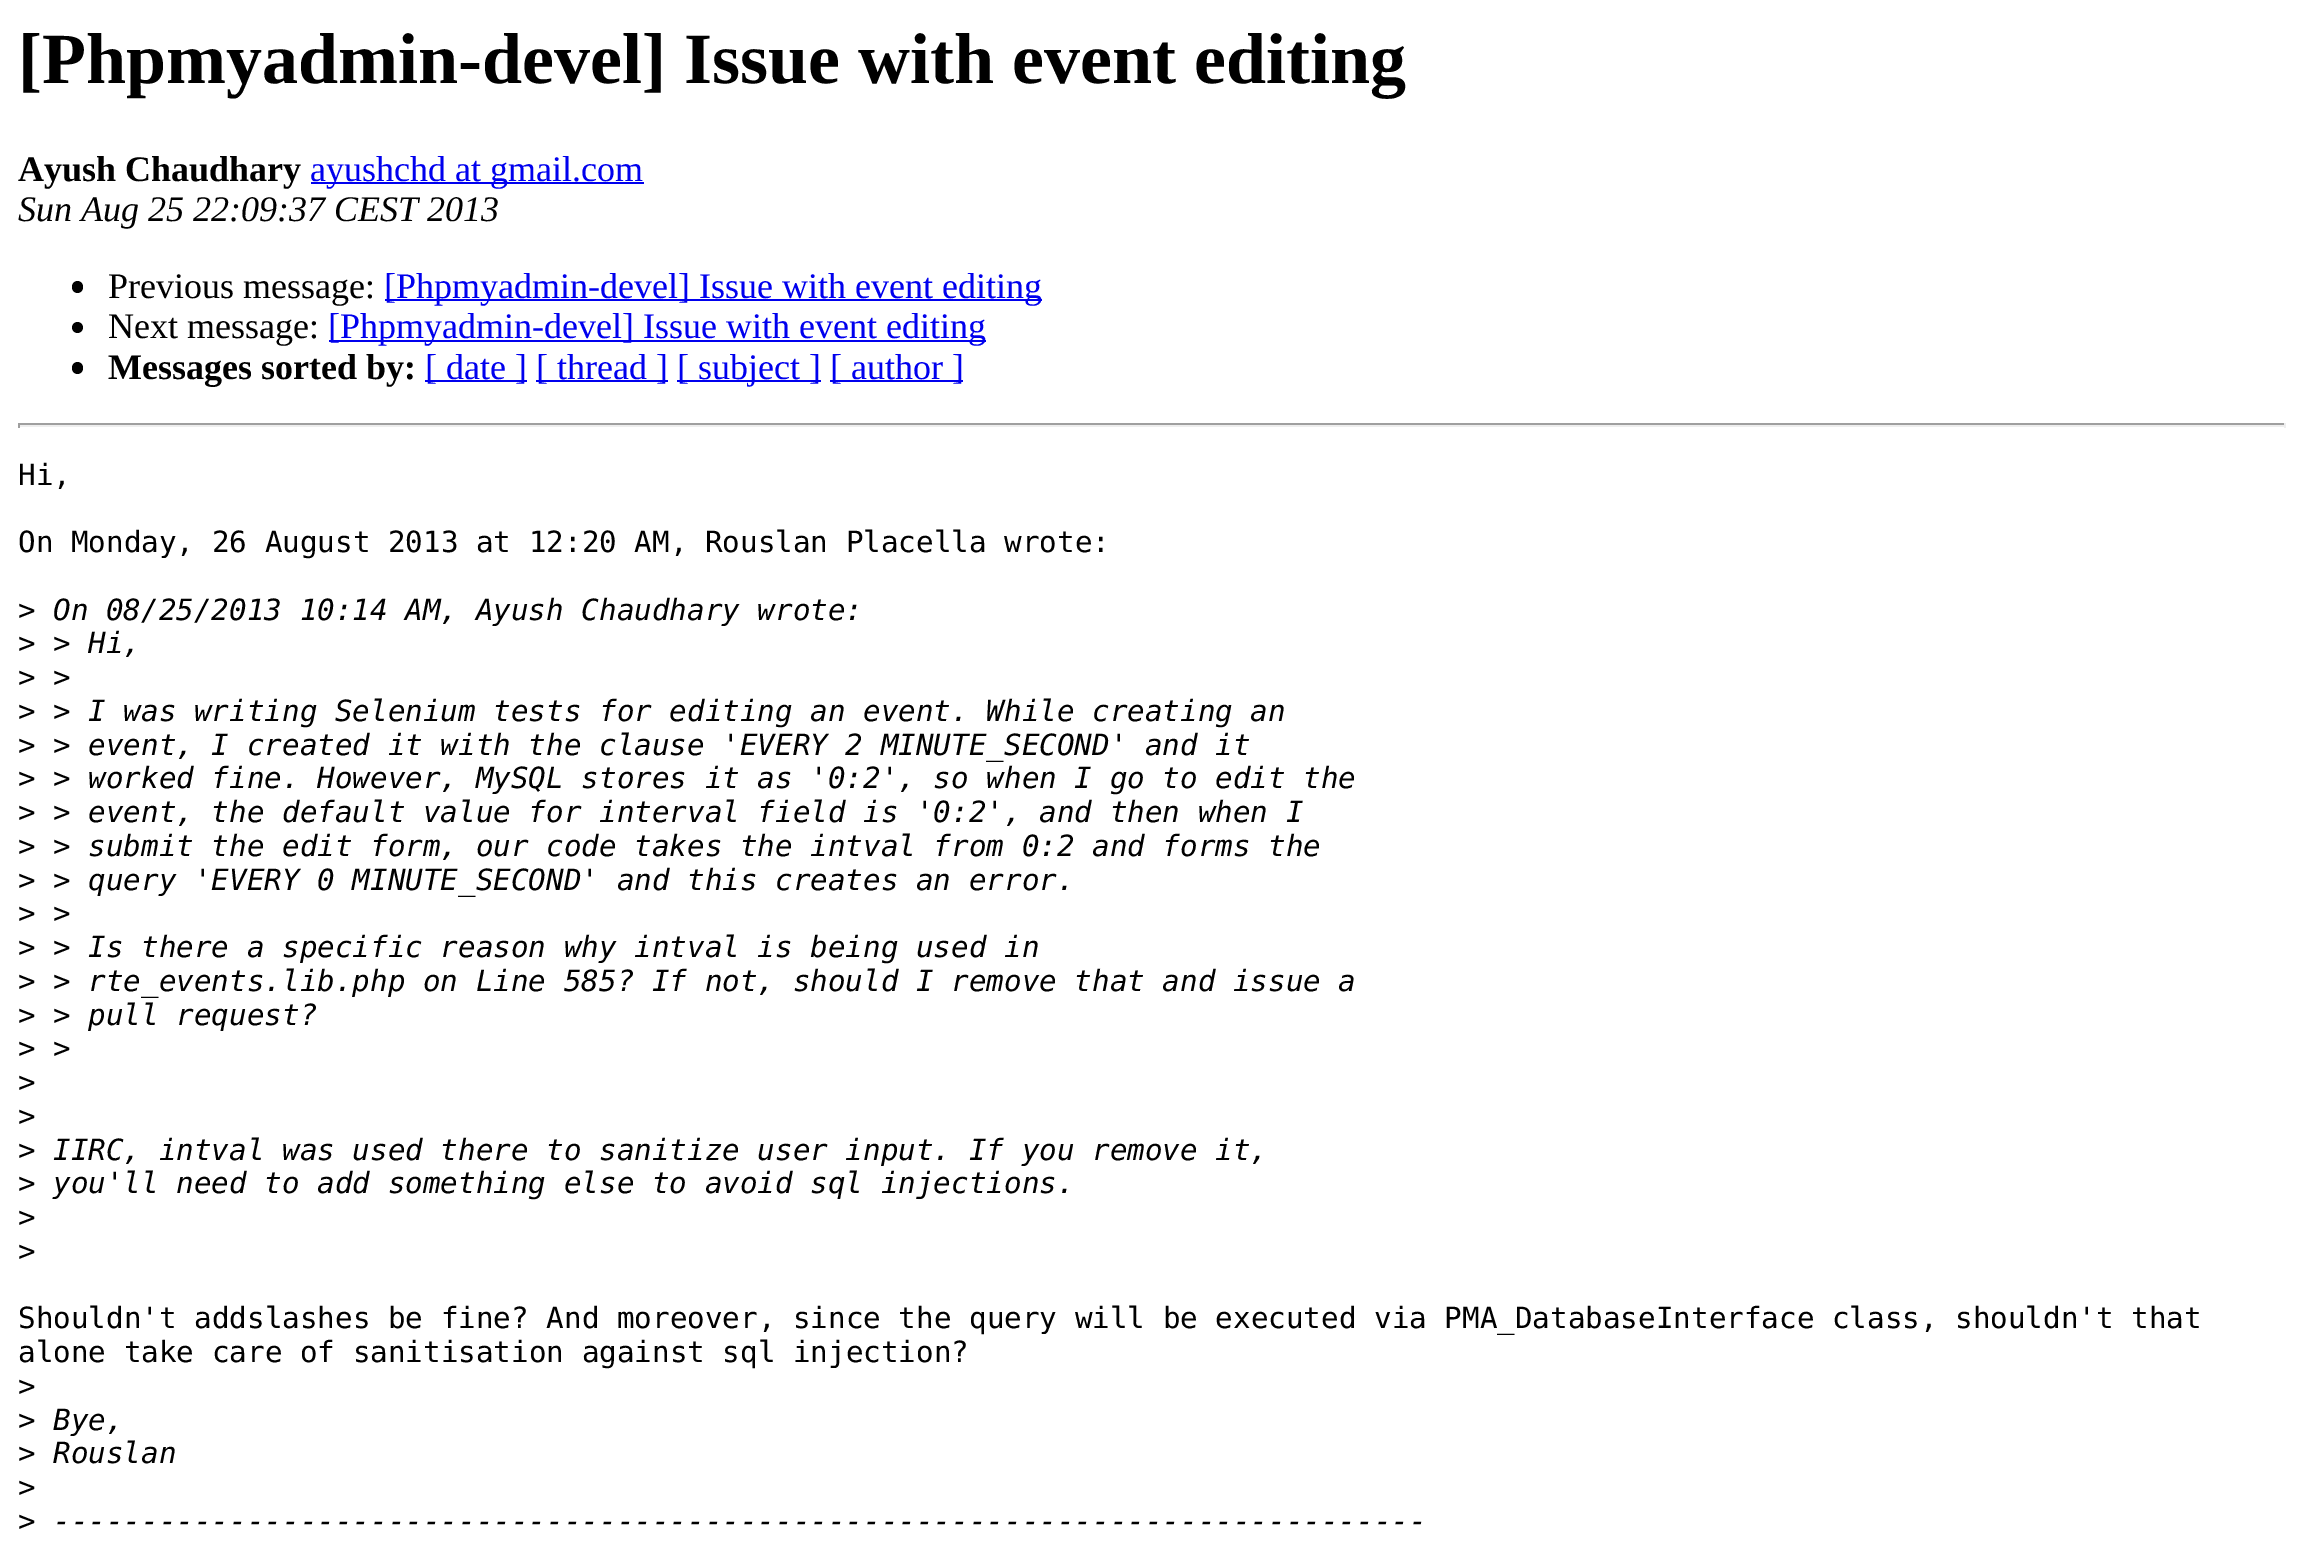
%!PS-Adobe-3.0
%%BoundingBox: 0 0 2303 1552
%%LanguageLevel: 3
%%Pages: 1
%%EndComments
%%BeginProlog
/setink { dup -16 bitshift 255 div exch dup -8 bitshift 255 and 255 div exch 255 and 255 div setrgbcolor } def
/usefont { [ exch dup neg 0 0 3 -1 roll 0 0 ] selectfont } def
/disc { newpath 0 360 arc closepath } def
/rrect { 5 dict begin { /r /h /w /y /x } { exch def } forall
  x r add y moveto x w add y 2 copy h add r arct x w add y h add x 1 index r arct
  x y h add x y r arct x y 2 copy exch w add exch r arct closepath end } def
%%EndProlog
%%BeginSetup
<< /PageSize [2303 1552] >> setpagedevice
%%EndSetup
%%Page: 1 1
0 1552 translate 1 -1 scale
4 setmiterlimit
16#FFFFFF setink
0 0 2303 1552 rectfill
/LiberationSerif-Bold 72 usefont
16#000000 setink
18 83 moveto ([Phpmyadmin-devel] Issue with event editing) show
/LiberationSerif-Bold 36 usefont
18 181 moveto (Ayush Chaudhary) show
16#0000EE setink
311 182 333 2 rectfill
/LiberationSerif-Regular 36 usefont
310 181 moveto (ayushchd at gmail.com) show
/LiberationSerif-Italic 36 usefont
16#000000 setink
18 221 moveto (Sun Aug 25 22:09:37 CEST 2013) show
72 281 11 12 5.5 rrect fill
/LiberationSerif-Regular 36 usefont
108 298 moveto (Previous message:) show
16#0000EE setink
385 299 657 2 rectfill
384 298 moveto ([Phpmyadmin-devel] Issue with event editing) show
16#000000 setink
77.5 327.5 5.5 disc fill
108 338 moveto (Next message:) show
16#0000EE setink
329 340 657 2 rectfill
328 338 moveto ([Phpmyadmin-devel] Issue with event editing) show
16#000000 setink
72 362 11 12 5.5 rrect fill
/LiberationSerif-Bold 36 usefont
108 379 moveto (Messages sorted by:) show
16#0000EE setink
425 380 102 2 rectfill
/LiberationSerif-Regular 36 usefont
425 379 moveto ([ date ]) show
536 380 132 2 rectfill
536 379 moveto ([ thread ]) show
677 380 144 2 rectfill
677 379 moveto ([ subject ]) show
830 380 133 2 rectfill
830 379 moveto ([ author ]) show
[
    [18 423 2268 2 16#9F9F9F]
    [2284 423 2 5 16#EEEEEE]
    [18 425 2268 2 16#EEEEEE]
    [18 423 2 5 16#9F9F9F]
] { aload pop setink rectfill } forall
/DejaVuSansMono-Regular 29.25 usefont
16#000000 setink
[
    [(Hi,) 18 485]
    [(On Monday, 26 August 2013 at 12:20 AM, Rouslan Placella wrote:) 18 552]
    [(>) 18 620]
] { aload pop moveto show } forall
/DejaVuSansMono-Italic 29.25 usefont
53 620 moveto (On 08/25/2013 10:14 AM, Ayush Chaudhary wrote:) show
/DejaVuSansMono-Regular 29.25 usefont
18 653 moveto (>) show
/DejaVuSansMono-Italic 29.25 usefont
53 653 moveto (> Hi,) show
/DejaVuSansMono-Regular 29.25 usefont
18 687 moveto (>) show
/DejaVuSansMono-Italic 29.25 usefont
53 687 moveto (>) show
/DejaVuSansMono-Regular 29.25 usefont
18 721 moveto (>) show
/DejaVuSansMono-Italic 29.25 usefont
53 721 moveto (> I was writing Selenium tests for editing an event. While creating an) show
/DejaVuSansMono-Regular 29.25 usefont
18 755 moveto (>) show
/DejaVuSansMono-Italic 29.25 usefont
53 755 moveto (> event, I created it with the clause 'EVERY 2 MINUTE_SECOND' and it) show
/DejaVuSansMono-Regular 29.25 usefont
18 788 moveto (>) show
/DejaVuSansMono-Italic 29.25 usefont
53 788 moveto (> worked fine. However, MySQL stores it as '0:2', so when I go to edit the) show
/DejaVuSansMono-Regular 29.25 usefont
18 822 moveto (>) show
/DejaVuSansMono-Italic 29.25 usefont
53 822 moveto (> event, the default value for interval field is '0:2', and then when I) show
/DejaVuSansMono-Regular 29.25 usefont
18 856 moveto (>) show
/DejaVuSansMono-Italic 29.25 usefont
53 856 moveto (> submit the edit form, our code takes the intval from 0:2 and forms the) show
/DejaVuSansMono-Regular 29.25 usefont
18 890 moveto (>) show
/DejaVuSansMono-Italic 29.25 usefont
53 890 moveto (> query 'EVERY 0 MINUTE_SECOND' and this creates an error.) show
/DejaVuSansMono-Regular 29.25 usefont
18 923 moveto (>) show
/DejaVuSansMono-Italic 29.25 usefont
53 923 moveto (>) show
/DejaVuSansMono-Regular 29.25 usefont
18 957 moveto (>) show
/DejaVuSansMono-Italic 29.25 usefont
53 957 moveto (> Is there a specific reason why intval is being used in) show
/DejaVuSansMono-Regular 29.25 usefont
18 991 moveto (>) show
/DejaVuSansMono-Italic 29.25 usefont
53 991 moveto (> rte_events.lib.php on Line 585? If not, should I remove that and issue a) show
/DejaVuSansMono-Regular 29.25 usefont
18 1025 moveto (>) show
/DejaVuSansMono-Italic 29.25 usefont
53 1025 moveto (> pull request?) show
/DejaVuSansMono-Regular 29.25 usefont
18 1058 moveto (>) show
/DejaVuSansMono-Italic 29.25 usefont
53 1058 moveto (>) show
/DejaVuSansMono-Regular 29.25 usefont
[
    [(>) 18 1092]
    [(>) 18 1126]
    [(>) 18 1160]
] { aload pop moveto show } forall
/DejaVuSansMono-Italic 29.25 usefont
53 1160 moveto (IIRC, intval was used there to sanitize user input. If you remove it,) show
/DejaVuSansMono-Regular 29.25 usefont
18 1193 moveto (>) show
/DejaVuSansMono-Italic 29.25 usefont
53 1193 moveto (you'll need to add something else to avoid sql injections.) show
/DejaVuSansMono-Regular 29.25 usefont
[
    [(>) 18 1227]
    [(>) 18 1261]
    [(Shouldn't addslashes be fine? And moreover, since the query will be executed via PMA_DatabaseInterface class, shouldn't that) 18 1328]
    [(alone take care of sanitisation against sql injection?) 18 1362]
    [(>) 18 1396]
    [(>) 18 1430]
] { aload pop moveto show } forall
/DejaVuSansMono-Italic 29.25 usefont
53 1430 moveto (Bye,) show
/DejaVuSansMono-Regular 29.25 usefont
18 1463 moveto (>) show
/DejaVuSansMono-Italic 29.25 usefont
53 1463 moveto (Rouslan) show
/DejaVuSansMono-Regular 29.25 usefont
18 1497 moveto (>) show
18 1531 moveto (>) show
/DejaVuSansMono-Italic 29.25 usefont
53 1531 moveto (------------------------------------------------------------------------------) show
showpage
%%EOF
